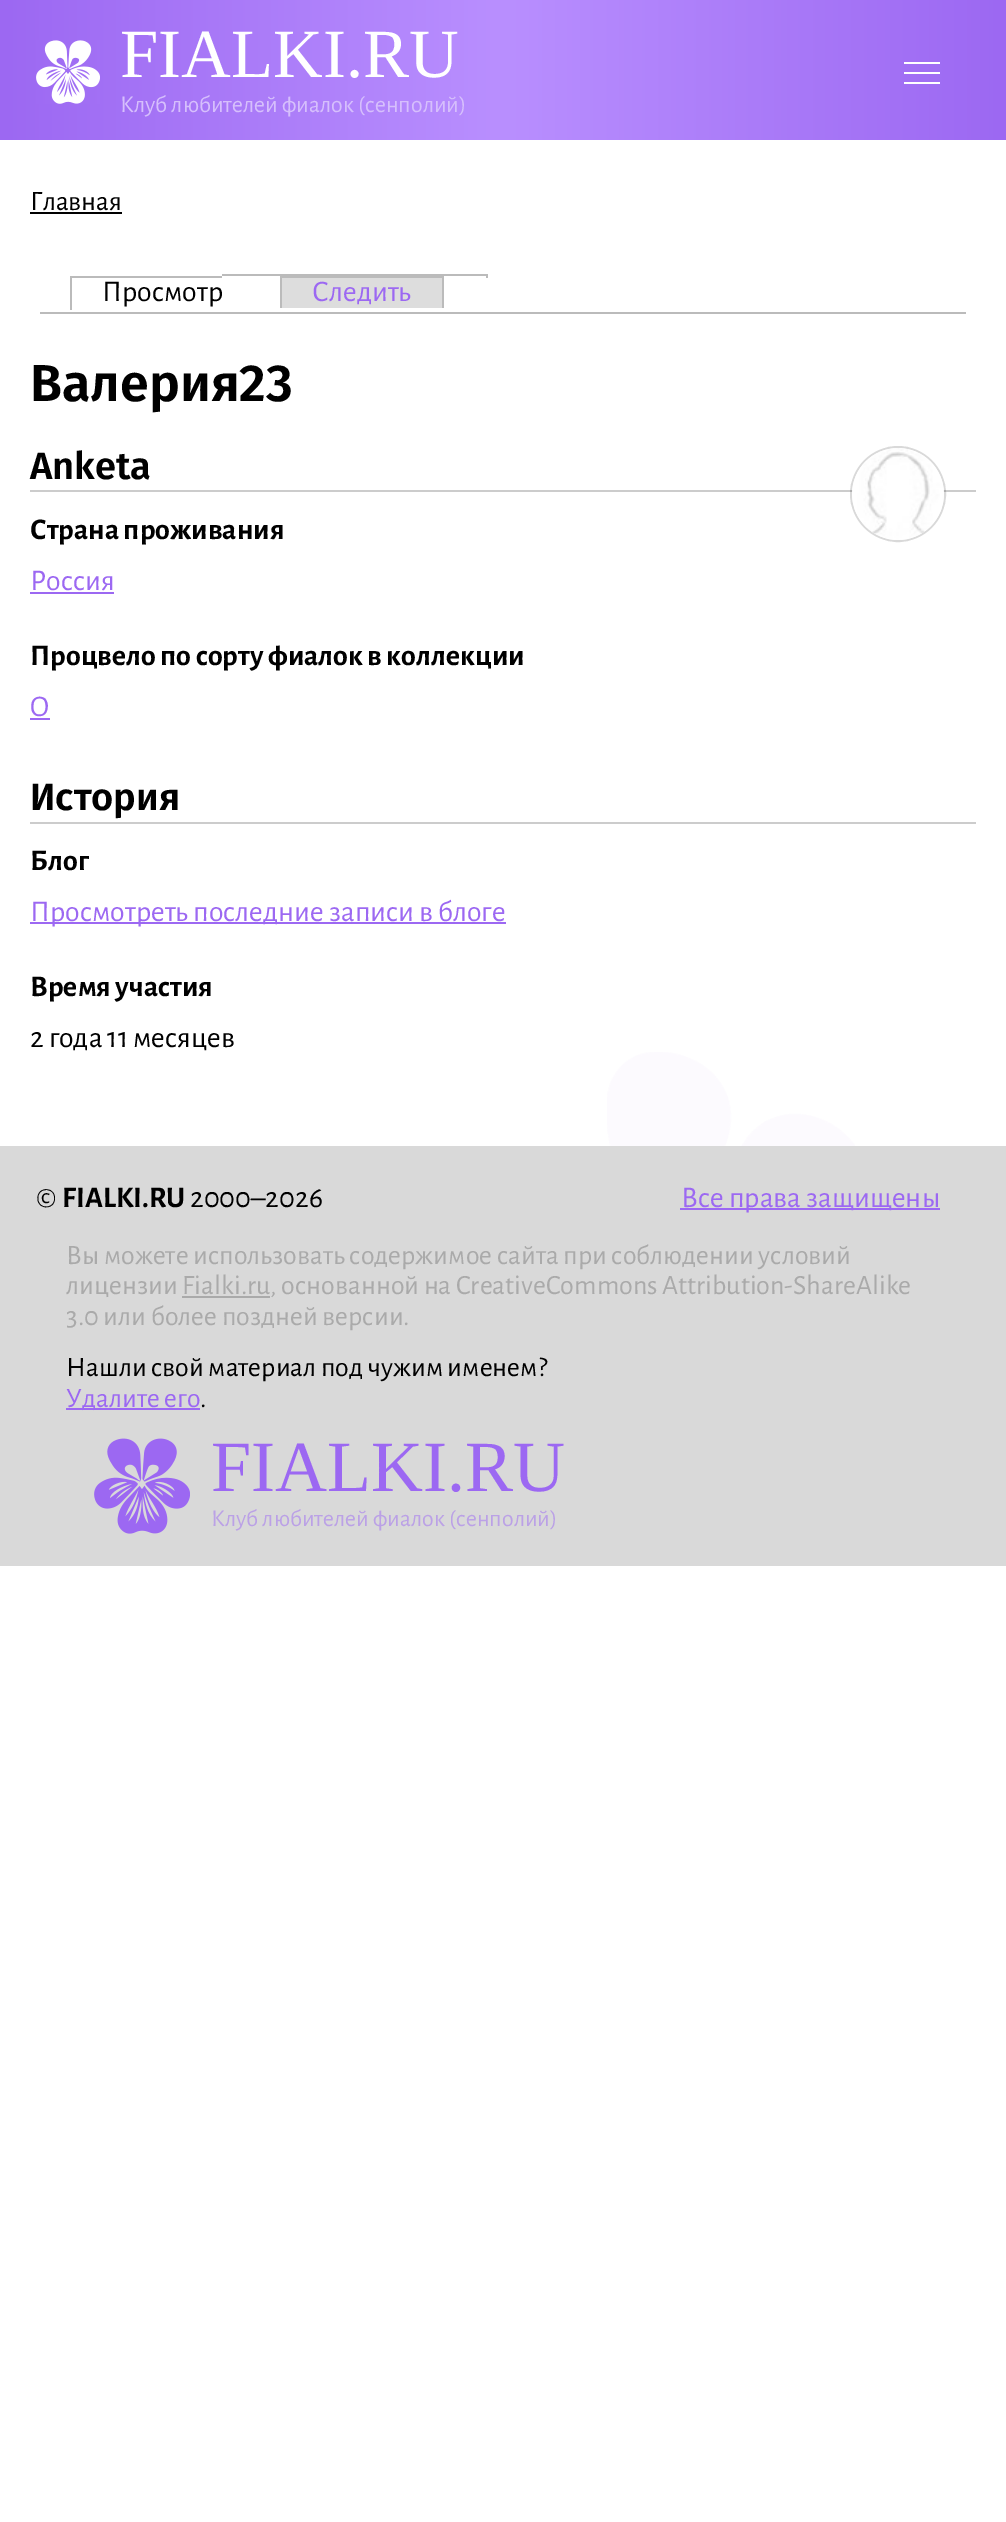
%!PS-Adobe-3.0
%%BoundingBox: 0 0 1006 2522
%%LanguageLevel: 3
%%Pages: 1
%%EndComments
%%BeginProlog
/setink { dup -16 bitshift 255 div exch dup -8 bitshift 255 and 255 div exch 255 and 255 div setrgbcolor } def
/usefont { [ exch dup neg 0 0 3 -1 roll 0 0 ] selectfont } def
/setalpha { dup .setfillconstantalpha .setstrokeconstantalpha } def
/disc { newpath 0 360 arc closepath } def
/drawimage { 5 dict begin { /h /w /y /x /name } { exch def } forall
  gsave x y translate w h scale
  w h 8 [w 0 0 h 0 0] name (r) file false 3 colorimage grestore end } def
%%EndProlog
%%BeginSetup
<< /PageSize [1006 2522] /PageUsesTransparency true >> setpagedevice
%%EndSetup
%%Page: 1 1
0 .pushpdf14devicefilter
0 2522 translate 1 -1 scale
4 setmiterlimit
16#FFFFFF setink
0 0 1006 2522 rectfill
gsave 0 0 moveto 1006 0 lineto 1006 140 lineto 0 140 lineto closepath clip newpath
<< /ShadingType 2 /ColorSpace /DeviceRGB /Coords [0 70 1006 70] /Extend [true true] /Function << /FunctionType 3 /Domain [0 1] /Functions [<< /FunctionType 2 /Domain [0 1] /C0 [0.612 0.408 0.949] /C1 [0.725 0.561 1] /N 1 >> << /FunctionType 2 /Domain [0 1] /C0 [0.725 0.561 1] /C1 [0.612 0.408 0.949] /N 1 >>] /Bounds [0.5] /Encode [0 1 0 1] >> >> shfill grestore
(img1.raw) 36 40 64 64 drawimage
/LiberationSerif-Regular 69 usefont
120 77 moveto (FIALKI.RU) show
/AlegreyaSans-Regular 24 usefont
16#D6BFFC setink
120 112 moveto (Клуб любителей фиалок \(сенполий\)) show
16#FFFFFF setink
904 62 moveto 940 62 lineto 940 64 lineto 904 64 lineto closepath 904 72 moveto 940 72 lineto 940 74 lineto 904 74 lineto closepath 940 82 moveto 904 82 lineto 904 84 lineto 940 84 lineto closepath fill
(img2.raw) 607 1052 248 94 drawimage
/AlegreyaSans-Regular 28 usefont
16#000000 setink
30 210 moveto (Главная) show
30 212 92 2 rectfill
16#BBBBBB setink
40 312 926 2 rectfill
/AlegreyaSans-Regular 30 usefont
16#000000 setink
102 301 moveto (Просмотр) show
[
    [70 276 152 2 16#BBBBBB]
    [70 276 2 34 16#BBBBBB]
    [222 274 266 2 16#BBBBBB]
    [486 274 2 6 16#BBBBBB]
    [486 278 2 2 16#FFFFFF]
    [282 278 160 30 16#DDDDDD]
] { aload pop setink rectfill } forall
16#9C68F2 setink
312 301 moveto (Следить) show
[
    [280 276 164 2 16#BBBBBB]
    [442 276 2 32 16#BBBBBB]
    [280 276 2 32 16#BBBBBB]
] { aload pop setink rectfill } forall
/FiraSans-SemiBold 52 usefont
16#000000 setink
30 401 moveto (Валерия23) show
16#CCCCCC setink
30 490 946 2 rectfill
/FiraSans-SemiBold 38 usefont
16#000000 setink
30 479 moveto (Anketa) show
0.15 setalpha
2 setlinewidth
898 494 47 disc stroke
1 setalpha
(img3.raw) 852 448 92 92 drawimage
/AlegreyaSans-Bold 30 usefont
30 539 moveto (Страна проживания) show
/AlegreyaSans-Regular 30 usefont
16#9C68F2 setink
30 590 moveto (Россия) show
30 592 84 2 rectfill
/AlegreyaSans-Bold 30 usefont
16#000000 setink
30 665 moveto (Процвело по сорту фиалок в коллекции) show
/AlegreyaSans-Regular 30 usefont
16#9C68F2 setink
30 716 moveto (O) show
30 718 20 2 rectfill
16#CCCCCC setink
30 822 946 2 rectfill
/FiraSans-SemiBold 38 usefont
16#000000 setink
30 810 moveto (История) show
/AlegreyaSans-Bold 30 usefont
30 870 moveto (Блог) show
16#9C68F2 setink
30 922 476 2 rectfill
/AlegreyaSans-Regular 30 usefont
30 921 moveto (Просмотреть последние записи в блоге) show
/AlegreyaSans-Bold 30 usefont
16#000000 setink
30 996 moveto (Время участия) show
/AlegreyaSans-Regular 30 usefont
30 1047 moveto (2 года 11 месяцев) show
16#D9D9D9 setink
0 1146 1006 420 rectfill
16#000000 setink
36 1207 moveto (©) show
/AlegreyaSans-Bold 30 usefont
62 1207 moveto (FIALKI.RU) show
/AlegreyaSans-Regular 30 usefont
190 1207 moveto (2000–2026) show
16#9C68F2 setink
680 1208 260 2 rectfill
681 1207 moveto (Все права защищены) show
/AlegreyaSans-Regular 28 usefont
16#AAAAAA setink
66 1264 moveto (Вы можете использовать содержимое сайта при соблюдении условий) show
66 1294 moveto (лицензии Fialki.ru, основанной на CreativeCommons Attribution-ShareAlike) show
182 1296 88 2 rectfill
66 1325 moveto (3.0 или более поздней версии.) show
16#000000 setink
66 1376 moveto (Нашли свой материал под чужим именем?) show
16#9C68F2 setink
66 1408 134 2 rectfill
66 1407 moveto (Удалите его) show
16#000000 setink
200 1407 moveto (.) show
(img4.raw) 94 1438 96 96 drawimage
/LiberationSerif-Regular 72 usefont
16#9C68F2 setink
211 1491 moveto (FIALKI.RU) show
/AlegreyaSans-Regular 24 usefont
16#BBA1E6 setink
211 1526 moveto (Клуб любителей фиалок \(сенполий\)) show
.poppdf14devicefilter showpage
%%EOF
